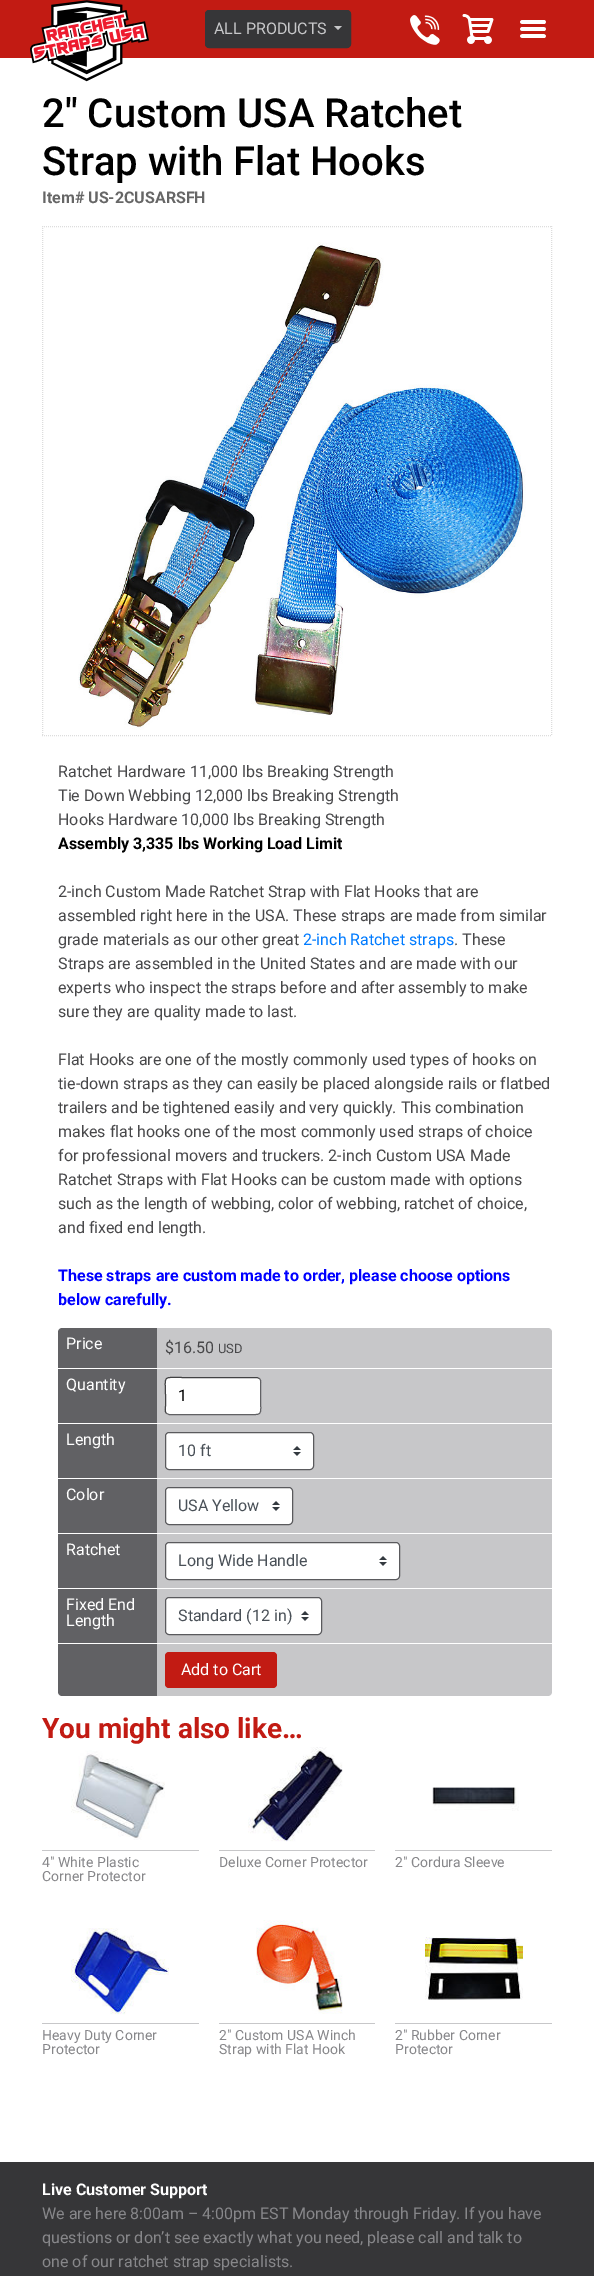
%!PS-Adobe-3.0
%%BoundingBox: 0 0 594 2276
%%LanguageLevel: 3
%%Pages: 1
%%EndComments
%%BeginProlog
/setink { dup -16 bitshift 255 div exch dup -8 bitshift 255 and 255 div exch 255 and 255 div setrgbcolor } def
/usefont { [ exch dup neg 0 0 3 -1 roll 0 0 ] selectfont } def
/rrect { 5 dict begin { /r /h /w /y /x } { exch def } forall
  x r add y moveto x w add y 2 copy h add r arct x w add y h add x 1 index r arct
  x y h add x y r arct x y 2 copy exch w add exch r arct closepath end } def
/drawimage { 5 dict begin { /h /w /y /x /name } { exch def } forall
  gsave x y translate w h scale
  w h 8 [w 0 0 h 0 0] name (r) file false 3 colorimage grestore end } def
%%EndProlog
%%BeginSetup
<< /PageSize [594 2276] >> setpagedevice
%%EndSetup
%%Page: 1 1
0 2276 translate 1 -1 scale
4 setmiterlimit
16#FFFFFF setink
0 0 594 2276 rectfill
16#C21B13 setink
0 0 594 58 rectfill
(img1.raw) 30 0 119 82 drawimage
16#363638 setink
205.5 10.5 145 37 3.5 rrect gsave fill grestore
stroke
/Roboto-Regular 16 usefont
16#C7C7C9 setink
214 34 moveto (ALL PRODUCTS) show
334 26 moveto 342 26 lineto 338 30 lineto closepath fill
(img2.raw) 410 15 30 30 drawimage
(img3.raw) 462 14 32 30 drawimage
(img4.raw) 520 20 26 18 drawimage
/Roboto-Medium 40 usefont
16#000000 setink
42 127 moveto (2" Custom USA Ratchet) show
42 175 moveto (Strap with Flat Hooks) show
/Roboto-Bold 16 usefont
16#666666 setink
42 203 moveto (Item# US-2CUSARSFH) show
16#DDDDDD setink
[1 1] 0 setdash
42 226.5 moveto 552 226.5 lineto stroke
551.5 226 moveto 551.5 736 lineto stroke
42 735.5 moveto 552 735.5 lineto stroke
42.5 226 moveto 42.5 736 lineto stroke
(img5.raw) 78 242 448 488 drawimage
/Roboto-Regular 16 usefont
16#48484A setink
[
    [(Ratchet Hardware 11,000 lbs Breaking Strength) 58 777]
    [(Tie Down Webbing 12,000 lbs Breaking Strength) 58 801]
    [(Hooks Hardware 10,000 lbs Breaking Strength) 58 825]
] { aload pop moveto show } forall
/Roboto-Bold 16 usefont
16#000000 setink
58 849 moveto (Assembly 3,335 lbs Working Load Limit) show
/Roboto-Regular 16 usefont
16#48484A setink
[
    [(2-inch Custom Made Ratchet Strap with Flat Hooks that are) 58 897]
    [(assembled right here in the USA. These straps are made from similar) 58 921]
    [(grade materials as our other great) 58 945]
] { aload pop moveto show } forall
16#007BFF setink
303 945 moveto (2-inch Ratchet straps) show
16#48484A setink
[
    [(. These) 454 945]
    [(Straps are assembled in the United States and are made with our) 58 969]
    [(experts who inspect the straps before and after assembly to make) 58 993]
    [(sure they are quality made to last.) 58 1017]
    [(Flat Hooks are one of the mostly commonly used types of hooks on) 58 1065]
    [(tie-down straps as they can easily be placed alongside rails or flatbed) 58 1089]
    [(trailers and be tightened easily and very quickly. This combination) 58 1113]
    [(makes flat hooks one of the most commonly used straps of choice) 58 1137]
    [(for professional movers and truckers. 2-inch Custom USA Made) 58 1161]
    [(Ratchet Straps with Flat Hooks can be custom made with options) 58 1185]
    [(such as the length of webbing, color of webbing, ratchet of choice,) 58 1209]
    [(and fixed end length.) 58 1233]
] { aload pop moveto show } forall
/Roboto-Bold 16 usefont
16#0000FF setink
58 1281 moveto (These straps are custom made to order, please choose options) show
58 1305 moveto (below carefully.) show
16#616164 setink
62 1328 moveto 157 1328 lineto 157 1368 lineto 58 1368 lineto 58 1332 lineto 58 1330 60 1328 62 1328 curveto closepath fill
/Roboto-Regular 16 usefont
16#FFFFFF setink
66 1349 moveto (Price) show
16#C7C7C9 setink
157 1328 moveto 548 1328 lineto 550 1328 552 1330 552 1332 curveto 552 1368 lineto 157 1368 lineto closepath fill
16#48484A setink
165 1353 moveto ($16.50) show
/Roboto-Regular 13 usefont
218 1353 moveto (USD) show
16#616164 setink
58 1369 99 54 rectfill
/Roboto-Regular 16 usefont
16#FFFFFF setink
66 1390 moveto (Quantity) show
16#C7C7C9 setink
157 1369 395 54 rectfill
16#FFFFFF setink
165 1377 96 38 4 rrect fill
16#616164 setink
[] 0 setdash
259.5 1378.5 moveto 261.5 1380.5 260.5 1384 260.5 1386 curveto 260.5 1396 lineto 260.5 1417.5 264.5 1414.5 242.5 1414.5 curveto 169 1414.5 lineto 166.5 1413.5 lineto stroke
16#414143 setink
166.5 1413.5 moveto 164.5 1411.5 165.5 1408 165.5 1406 curveto 165.5 1396 lineto 165.5 1374.5 161.5 1377.5 183.5 1377.5 curveto 257 1377.5 lineto 259.5 1378.5 lineto stroke
16#000000 setink
178 1401 moveto (1) show
16#616164 setink
58 1424 99 54 rectfill
16#FFFFFF setink
66 1445 moveto (Length) show
16#C7C7C9 setink
157 1424 395 54 rectfill
16#FFFFFF setink
165 1432 149 38 4 rrect fill
(img6.raw) 293 1446 8 10 drawimage
16#5A5A5D setink
165.5 1432.5 148 37 3.5 rrect stroke
16#495057 setink
178 1456 moveto (10 ft) show
16#616164 setink
58 1479 99 54 rectfill
16#FFFFFF setink
66 1500 moveto (Color) show
16#C7C7C9 setink
157 1479 395 54 rectfill
16#FFFFFF setink
165 1487 128 38 4 rrect fill
(img6.raw) 272 1501 8 10 drawimage
16#5A5A5D setink
165.5 1487.5 127 37 3.5 rrect stroke
16#495057 setink
178 1511 moveto (USA Yellow) show
16#616164 setink
58 1534 99 54 rectfill
16#FFFFFF setink
66 1555 moveto (Ratchet) show
16#C7C7C9 setink
157 1534 395 54 rectfill
16#FFFFFF setink
165 1542 235 38 4 rrect fill
(img6.raw) 379 1556 8 10 drawimage
16#5A5A5D setink
165.5 1542.5 234 37 3.5 rrect stroke
16#495057 setink
178 1566 moveto (Long Wide Handle) show
16#616164 setink
58 1589 99 54 rectfill
16#FFFFFF setink
66 1610 moveto (Fixed End) show
66 1626 moveto (Length) show
16#C7C7C9 setink
157 1589 395 54 rectfill
16#FFFFFF setink
165 1597 157 38 4 rrect fill
(img6.raw) 301 1611 8 10 drawimage
16#5A5A5D setink
165.5 1597.5 156 37 3.5 rrect stroke
16#495057 setink
178 1621 moveto (Standard \(12 in\)) show
16#616164 setink
58 1644 moveto 157 1644 lineto 157 1696 lineto 62 1696 lineto 60 1696 58 1694 58 1692 curveto closepath fill
16#C7C7C9 setink
157 1644 moveto 552 1644 lineto 552 1692 lineto 552 1694 550 1696 548 1696 curveto 157 1696 lineto closepath fill
16#C21B13 setink
165 1652 112 36 4 rrect fill
16#FFFFFF setink
181 1675 moveto (Add to Cart) show
/Roboto-Bold 28 usefont
16#C21B13 setink
42 1738 moveto (You might also like…) show
(img7.raw) 71 1750 94 90 drawimage
16#C7C7C9 setink
42 1850 157 1 rectfill
/Roboto-Regular 14 usefont
16#87878A setink
42 1867 moveto (4" White Plastic) show
42 1881 moveto (Corner Protector) show
(img8.raw) 248 1747 95 95 drawimage
16#C7C7C9 setink
219 1850 156 1 rectfill
16#87878A setink
219 1867 moveto (Deluxe Corner Protector) show
(img9.raw) 432 1787 87 24 drawimage
16#C7C7C9 setink
395 1850 157 1 rectfill
16#87878A setink
395 1867 moveto (2" Cordura Sleeve) show
(img10.raw) 71 1928 98 87 drawimage
16#C7C7C9 setink
42 2023 157 1 rectfill
16#87878A setink
42 2040 moveto (Heavy Duty Corner) show
42 2054 moveto (Protector) show
(img11.raw) 256 1920 87 94 drawimage
16#C7C7C9 setink
219 2023 156 1 rectfill
16#87878A setink
219 2040 moveto (2" Custom USA Winch) show
219 2054 moveto (Strap with Flat Hook) show
(img12.raw) 425 1937 98 63 drawimage
16#C7C7C9 setink
395 2023 157 1 rectfill
16#87878A setink
395 2040 moveto (2" Rubber Corner) show
395 2054 moveto (Protector) show
16#363638 setink
0 2162 594 114 rectfill
/Roboto-Bold 16 usefont
16#FFFFFF setink
42 2195 moveto (Live Customer Support) show
/Roboto-Regular 16 usefont
16#87878A setink
[
    [(We are here 8:00am – 4:00pm EST Monday through Friday. If you have) 42 2219]
    [(questions or don’t see exactly what you need, please call and talk to) 42 2243]
    [(one of our ratchet strap specialists.) 42 2267]
] { aload pop moveto show } forall
showpage
%%EOF
